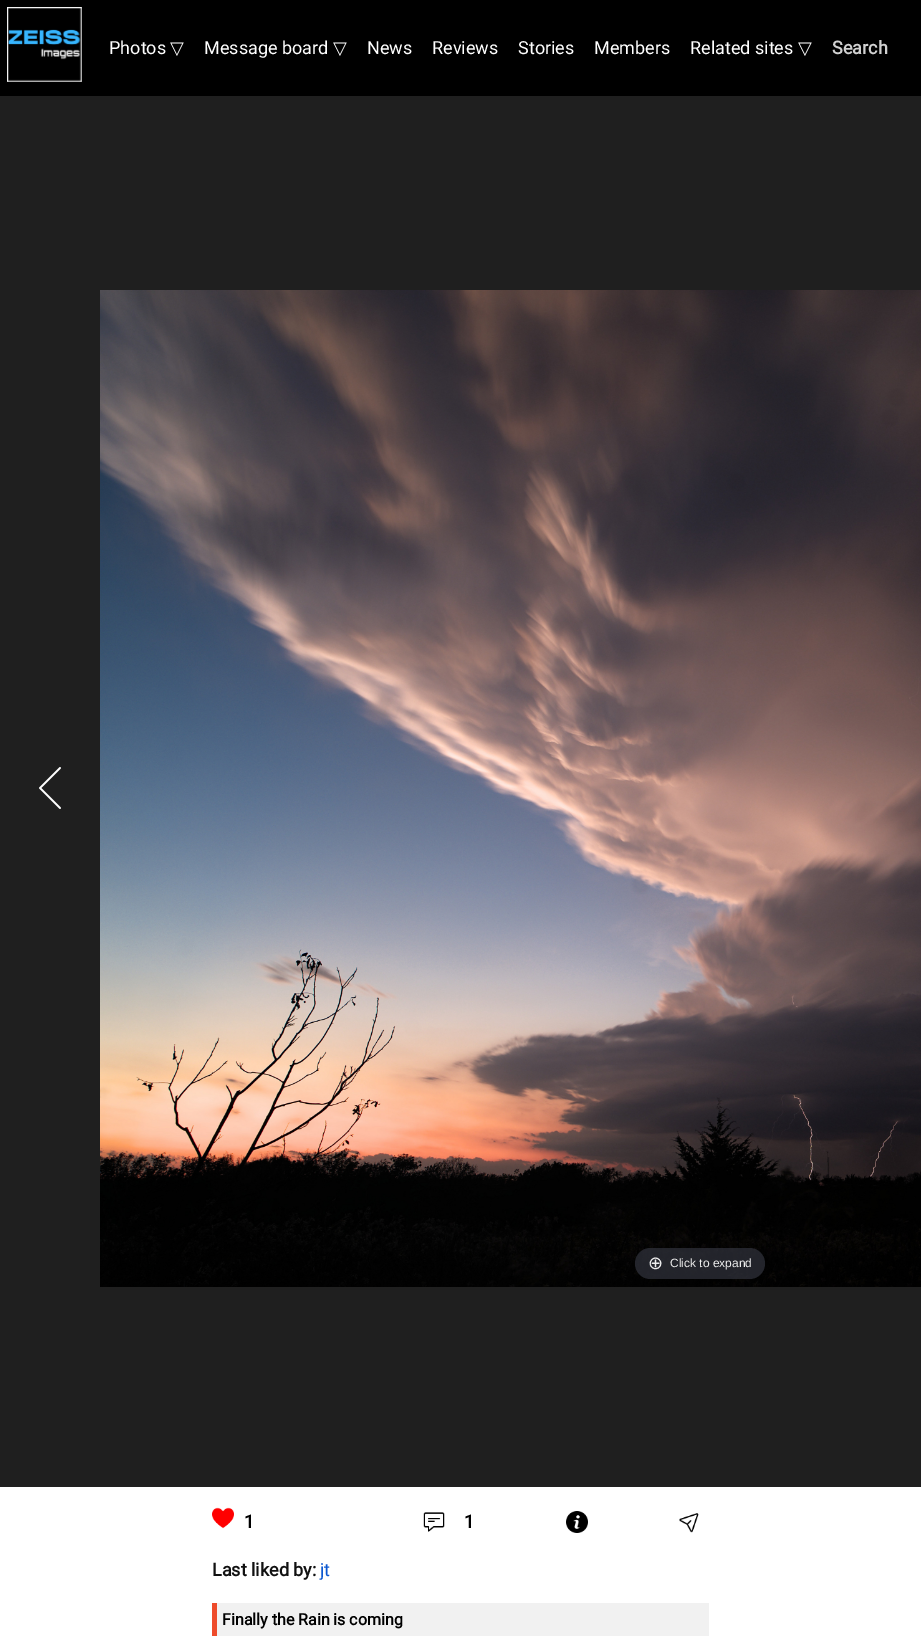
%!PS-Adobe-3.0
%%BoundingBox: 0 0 921 1643
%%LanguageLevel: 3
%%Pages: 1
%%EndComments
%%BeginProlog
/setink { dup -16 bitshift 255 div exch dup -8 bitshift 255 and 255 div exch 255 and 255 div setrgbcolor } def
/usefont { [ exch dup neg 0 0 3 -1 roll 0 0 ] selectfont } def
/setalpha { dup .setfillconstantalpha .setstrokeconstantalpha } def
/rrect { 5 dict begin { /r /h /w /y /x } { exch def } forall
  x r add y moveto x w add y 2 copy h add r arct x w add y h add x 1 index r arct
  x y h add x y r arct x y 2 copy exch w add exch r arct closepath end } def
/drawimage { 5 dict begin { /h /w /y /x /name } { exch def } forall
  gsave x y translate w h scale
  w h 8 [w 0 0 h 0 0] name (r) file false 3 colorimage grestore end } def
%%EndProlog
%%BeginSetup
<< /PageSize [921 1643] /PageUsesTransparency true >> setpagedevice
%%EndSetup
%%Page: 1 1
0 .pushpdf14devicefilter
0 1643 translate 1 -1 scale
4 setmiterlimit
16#FFFFFF setink
0 0 921 1643 rectfill
16#000000 setink
0 0 921 96 rectfill
(img1.raw) 7 7 75 75 drawimage
/Roboto-Regular 18 usefont
16#FFFFFF setink
109 54 moveto (Photos) show
/DejaVuSans-Regular 18 usefont
170 54 moveto (▽) show
/Roboto-Regular 18 usefont
204 54 moveto (Message board) show
/DejaVuSans-Regular 18 usefont
333 54 moveto (▽) show
/Roboto-Regular 18 usefont
[
    [(News) 367 54]
    [(Reviews) 432 54]
    [(Stories) 518 54]
    [(Members) 594 54]
    [(Related sites) 690 54]
] { aload pop moveto show } forall
/DejaVuSans-Regular 18 usefont
798 54 moveto (▽) show
/Roboto-Bold 18 usefont
16#D1D1D1 setink
832 54 moveto (Search) show
16#1F1F1F setink
0 96 921 1391 rectfill
(img2.raw) 39 767 22 42 drawimage
(img3.raw) 100 290 821 997 drawimage
0.7 setalpha
16#31333D setink
635 1248 130 31 15.5 rrect fill
/DejaVuSans-Regular 18 usefont
1 setalpha
16#EEEEEE setink
648 1269 moveto (⊕) show
/LiberationSans-Regular 12 usefont
670 1267 moveto (Click to expand) show
(img4.raw) 212 1507 22 22 drawimage
/Roboto-Bold 18 usefont
16#000000 setink
244 1528 moveto (1) show
(img5.raw) 423 1512 22 20 drawimage
464 1528 moveto (1) show
(img6.raw) 566 1511 22 22 drawimage
(img7.raw) 679 1513 20 20 drawimage
16#111111 setink
212 1576 moveto (Last liked by:) show
/Roboto-Regular 18 usefont
16#0B57D0 setink
320 1576 moveto (jt) show
16#F1F1F1 setink
217 1603 492 33 rectfill
16#EE4B2B setink
212 1603 5 33 rectfill
/Roboto-Bold 16 usefont
16#000000 setink
222 1625 moveto (Finally the Rain is coming) show
.poppdf14devicefilter showpage
%%EOF
